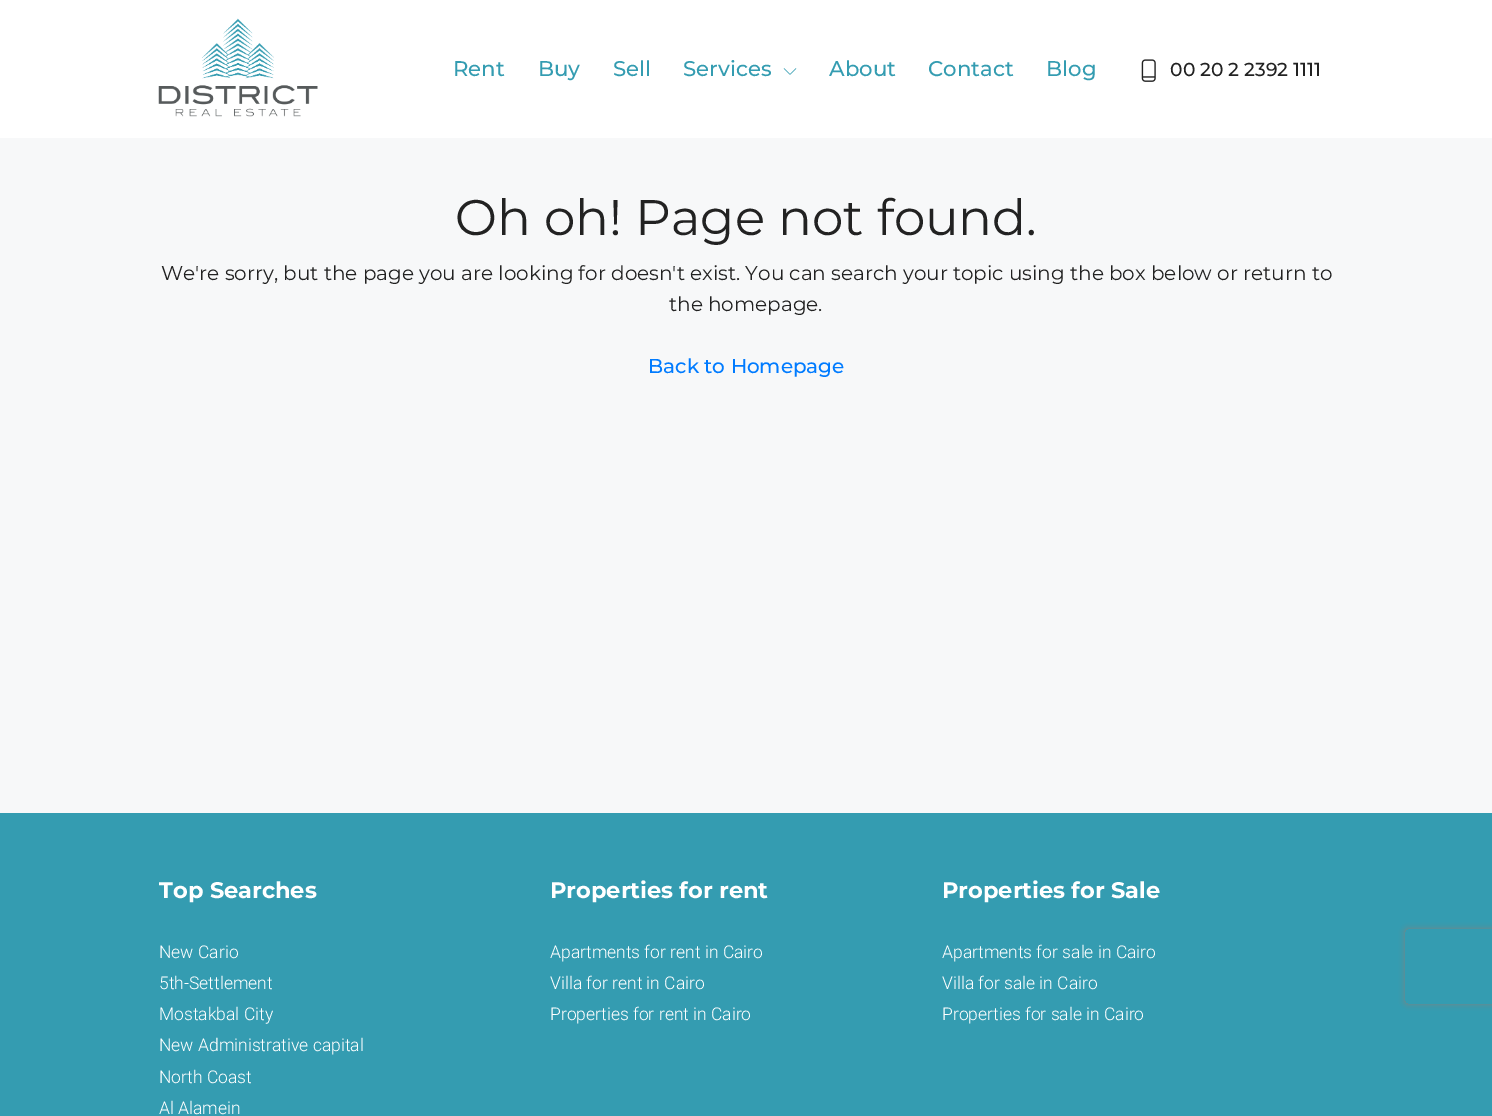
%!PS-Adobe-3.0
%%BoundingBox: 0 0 1492 1116
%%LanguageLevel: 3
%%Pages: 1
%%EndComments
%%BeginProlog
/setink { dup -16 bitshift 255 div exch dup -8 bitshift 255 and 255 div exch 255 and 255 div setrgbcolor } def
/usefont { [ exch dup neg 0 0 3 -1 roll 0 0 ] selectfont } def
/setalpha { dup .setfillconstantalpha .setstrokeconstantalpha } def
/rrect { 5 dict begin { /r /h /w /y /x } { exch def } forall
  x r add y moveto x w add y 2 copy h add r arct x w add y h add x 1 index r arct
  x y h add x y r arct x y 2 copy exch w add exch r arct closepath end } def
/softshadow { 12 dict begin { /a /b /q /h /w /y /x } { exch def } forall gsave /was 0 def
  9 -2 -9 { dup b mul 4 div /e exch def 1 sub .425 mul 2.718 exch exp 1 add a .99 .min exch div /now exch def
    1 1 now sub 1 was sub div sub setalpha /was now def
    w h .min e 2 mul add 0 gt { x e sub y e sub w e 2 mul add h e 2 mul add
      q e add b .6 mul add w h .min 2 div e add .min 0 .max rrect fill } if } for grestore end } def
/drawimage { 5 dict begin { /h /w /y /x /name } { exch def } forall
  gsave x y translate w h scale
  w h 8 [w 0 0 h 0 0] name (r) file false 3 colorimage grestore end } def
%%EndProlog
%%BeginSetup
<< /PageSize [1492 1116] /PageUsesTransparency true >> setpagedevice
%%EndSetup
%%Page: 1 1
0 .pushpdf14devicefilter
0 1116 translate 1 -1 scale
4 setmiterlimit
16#F7F8F9 setink
0 0 1492 1116 rectfill
16#FFFFFF setink
0 0 1492 138 rectfill
(img1.raw) 158 18 160 99 drawimage
/Montserrat-Medium 21.25 usefont
16#349CB1 setink
[
    [(Rent) 453 76]
    [(Buy) 538 76]
    [(Sell) 613 76]
    [(Services) 683 76]
] { aload pop moveto show } forall
(img2.raw) 783 68 14 7 drawimage
[
    [(About) 829 76]
    [(Contact) 928 76]
    [(Blog) 1046 76]
] { aload pop moveto show } forall
(img3.raw) 1141 59 15 23 drawimage
/Montserrat-Medium 18.75 usefont
16#222222 setink
1170 76 moveto (00 20 2 2392 1111) show
/Montserrat-Regular 50 usefont
455 235 moveto (Oh oh! Page not found.) show
/Montserrat-Regular 20 usefont
161 280 moveto (We're sorry, but the page you are looking for doesn't exist. You can search your topic using the box below or return to) show
669 311 moveto (the homepage.) show
/Montserrat-Medium 20 usefont
16#007BFF setink
648 373 moveto (Back to Homepage) show
16#349CB1 setink
0 813 1492 303 rectfill
/Montserrat-Bold 22.5 usefont
16#FFFFFF setink
159 898 moveto (Top Searches) show
/Roboto-Light 17.5 usefont
[
    [(New Cario) 159 958]
    [(5th-Settlement) 159 989]
    [(Mostakbal City) 159 1020]
    [(New Administrative capital) 159 1051]
    [(North Coast) 159 1083]
    [(Al Alamein) 159 1114]
] { aload pop moveto show } forall
/Montserrat-Bold 22.5 usefont
550 898 moveto (Properties for rent) show
/Roboto-Light 17.5 usefont
[
    [(Apartments for rent in Cairo) 550 958]
    [(Villa for rent in Cairo) 550 989]
    [(Properties for rent in Cairo) 550 1020]
] { aload pop moveto show } forall
/Montserrat-Bold 22.5 usefont
942 898 moveto (Properties for Sale) show
/Roboto-Light 17.5 usefont
[
    [(Apartments for sale in Cairo) 942 958]
    [(Villa for sale in Cairo) 942 989]
    [(Properties for sale in Cairo) 942 1020]
] { aload pop moveto show } forall
gsave
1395 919 moveto 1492 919 lineto 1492 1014 lineto 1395 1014 lineto closepath 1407.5 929 moveto 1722.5 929 lineto 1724 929 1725 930 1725 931.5 curveto 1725 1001.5 lineto 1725 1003 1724 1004 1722.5 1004 curveto 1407.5 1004 lineto 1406 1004 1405 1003 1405 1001.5 curveto 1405 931.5 lineto 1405 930 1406 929 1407.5 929 curveto closepath eoclip newpath
16#808080 setink
1405 929 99 75 2.5 3 1 softshadow
grestore
.poppdf14devicefilter showpage
%%EOF
